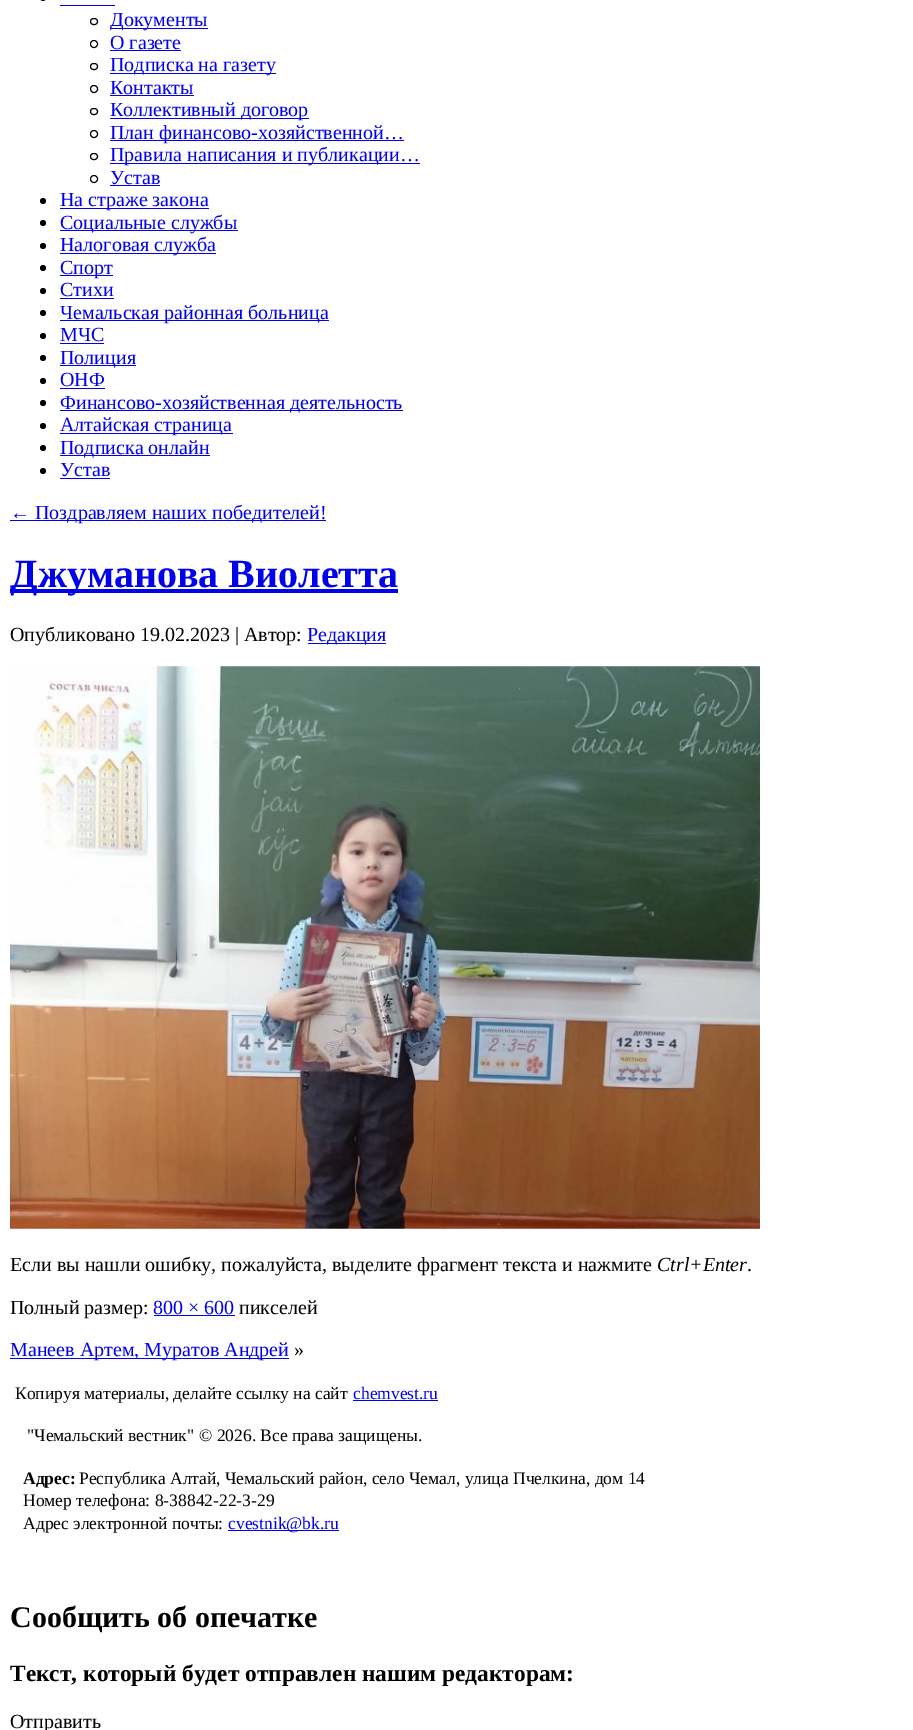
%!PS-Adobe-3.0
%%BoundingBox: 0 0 913 1730
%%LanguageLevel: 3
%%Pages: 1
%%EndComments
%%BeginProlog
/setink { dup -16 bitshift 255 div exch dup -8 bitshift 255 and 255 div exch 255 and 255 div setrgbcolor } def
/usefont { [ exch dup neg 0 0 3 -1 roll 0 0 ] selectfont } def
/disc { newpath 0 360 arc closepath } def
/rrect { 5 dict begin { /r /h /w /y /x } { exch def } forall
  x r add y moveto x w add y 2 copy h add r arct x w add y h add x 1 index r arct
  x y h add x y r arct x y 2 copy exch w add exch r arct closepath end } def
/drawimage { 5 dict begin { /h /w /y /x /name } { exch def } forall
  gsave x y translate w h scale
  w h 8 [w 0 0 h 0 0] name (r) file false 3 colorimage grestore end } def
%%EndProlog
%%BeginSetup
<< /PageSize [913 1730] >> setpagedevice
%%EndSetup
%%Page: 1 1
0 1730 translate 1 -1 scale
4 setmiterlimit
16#FFFFFF setink
0 0 913 1730 rectfill
16#000000 setink
40 -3 6 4 3 rrect fill
16#0000EE setink
60 5 55 1 rectfill
16#000000 setink
90.5 18.5 7 6 3 rrect stroke
16#0000EE setink
110 28 98 1 rectfill
/LiberationSerif-Regular 20 usefont
110 26 moveto (Документы) show
16#000000 setink
94 44 3.5 disc stroke
16#0000EE setink
110 49 moveto (О газете) show
110 50 71 1 rectfill
16#000000 setink
90.5 63.5 7 6 3 rrect stroke
16#0000EE setink
110 73 166 1 rectfill
110 71 moveto (Подписка на газету) show
16#000000 setink
94 89 3.5 disc stroke
16#0000EE setink
110 94 moveto (Контакты) show
110 95 84 1 rectfill
16#000000 setink
90.5 108.5 7 6 3 rrect stroke
16#0000EE setink
110 118 199 1 rectfill
110 116 moveto (Коллективный договор) show
16#000000 setink
94 134 3.5 disc stroke
16#0000EE setink
110 140 294 1 rectfill
110 139 moveto (План финансово-хозяйственной…) show
16#000000 setink
90.5 153.5 7 6 3 rrect stroke
16#0000EE setink
110 163 310 1 rectfill
110 161 moveto (Правила написания и публикации…) show
16#000000 setink
94 179 3.5 disc stroke
16#0000EE setink
110 184 moveto (Устав) show
110 185 50 1 rectfill
16#000000 setink
43 201 3 disc fill
16#0000EE setink
60 208 149 1 rectfill
60 206 moveto (На страже закона) show
16#000000 setink
43 223 3 disc fill
16#0000EE setink
60 230 178 1 rectfill
60 229 moveto (Социальные службы) show
16#000000 setink
43 246 3 disc fill
16#0000EE setink
60 253 156 1 rectfill
60 251 moveto (Налоговая служба) show
16#000000 setink
43 268 3 disc fill
16#0000EE setink
60 275 53 1 rectfill
60 274 moveto (Спорт) show
16#000000 setink
43 291 3 disc fill
16#0000EE setink
60 296 moveto (Стихи) show
60 298 54 1 rectfill
16#000000 setink
43 313 3 disc fill
16#0000EE setink
60 320 269 1 rectfill
60 319 moveto (Чемальская районная больница) show
16#000000 setink
43 336 3 disc fill
16#0000EE setink
60 341 moveto (МЧС) show
60 343 44 1 rectfill
16#000000 setink
43 358 3 disc fill
16#0000EE setink
60 365 76 1 rectfill
60 364 moveto (Полиция) show
16#000000 setink
43 381 3 disc fill
16#0000EE setink
60 386 moveto (ОНФ) show
60 388 45 1 rectfill
16#000000 setink
43 403 3 disc fill
16#0000EE setink
60 410 343 1 rectfill
60 409 moveto (Финансово-хозяйственная деятельность) show
16#000000 setink
43 426 3 disc fill
16#0000EE setink
60 433 173 1 rectfill
60 431 moveto (Алтайская страница) show
16#000000 setink
43 448 3 disc fill
16#0000EE setink
60 455 150 1 rectfill
60 454 moveto (Подписка онлайн) show
16#000000 setink
43 471 3 disc fill
16#0000EE setink
60 476 moveto (Устав) show
60 478 50 1 rectfill
10 520 316 1 rectfill
10 519 moveto (← Поздравляем наших победителей!) show
10 589 388 4 rectfill
/LiberationSerif-Bold 40 usefont
10 587 moveto (Джуманова Виолетта) show
/LiberationSerif-Regular 20 usefont
16#000000 setink
10 641 moveto (Опубликовано 19.02.2023 | Автор:) show
16#0000EE setink
308 643 78 1 rectfill
307 641 moveto (Редакция) show
(img1.raw) 10 666 750 563 drawimage
16#000000 setink
10 1271 moveto (Если вы нашли ошибку, пожалуйста, выделите фрагмент текста и нажмите) show
/LiberationSerif-Italic 20 usefont
657 1271 moveto (Ctrl+Enter) show
/LiberationSerif-Regular 20 usefont
747 1271 moveto (.) show
10 1314 moveto (Полный размер:) show
16#0000EE setink
153 1314 moveto (800 × 600) show
154 1315 81 1 rectfill
16#000000 setink
239 1314 moveto (пикселей) show
16#0000EE setink
10 1358 279 1 rectfill
10 1356 moveto (Манеев Артем, Муратов Андрей) show
16#000000 setink
294 1356 moveto (») show
/LiberationSerif-Regular 17.5 usefont
15 1399 moveto (Копируя материалы, делайте ссылку на сайт) show
16#0000EE setink
353 1399 moveto (chemvest.ru) show
353 1400 85 1 rectfill
16#000000 setink
27 1441 moveto ("Чемальский вестник") show
199 1441 moveto (© 2026. Все права защищены.) show
/LiberationSerif-Bold 17.5 usefont
23 1484 moveto (Адрес:) show
/LiberationSerif-Regular 17.5 usefont
[
    [(Республика Алтай, Чемальский район, село Чемал, улица Пчелкина, дом 14) 79 1484]
    [(Номер телефона: 8-38842-22-3-29) 23 1506]
    [(Адрес электронной почты:) 23 1529]
] { aload pop moveto show } forall
16#0000EE setink
228 1530 111 1 rectfill
228 1529 moveto (cvestnik@bk.ru) show
/LiberationSerif-Bold 30 usefont
16#000000 setink
10 1627 moveto (Сообщить об опечатке) show
/LiberationSerif-Bold 23.4 usefont
10 1681 moveto (Текст, который будет отправлен нашим редакторам:) show
/LiberationSerif-Regular 20 usefont
10 1728 moveto (Отправить) show
showpage
%%EOF
